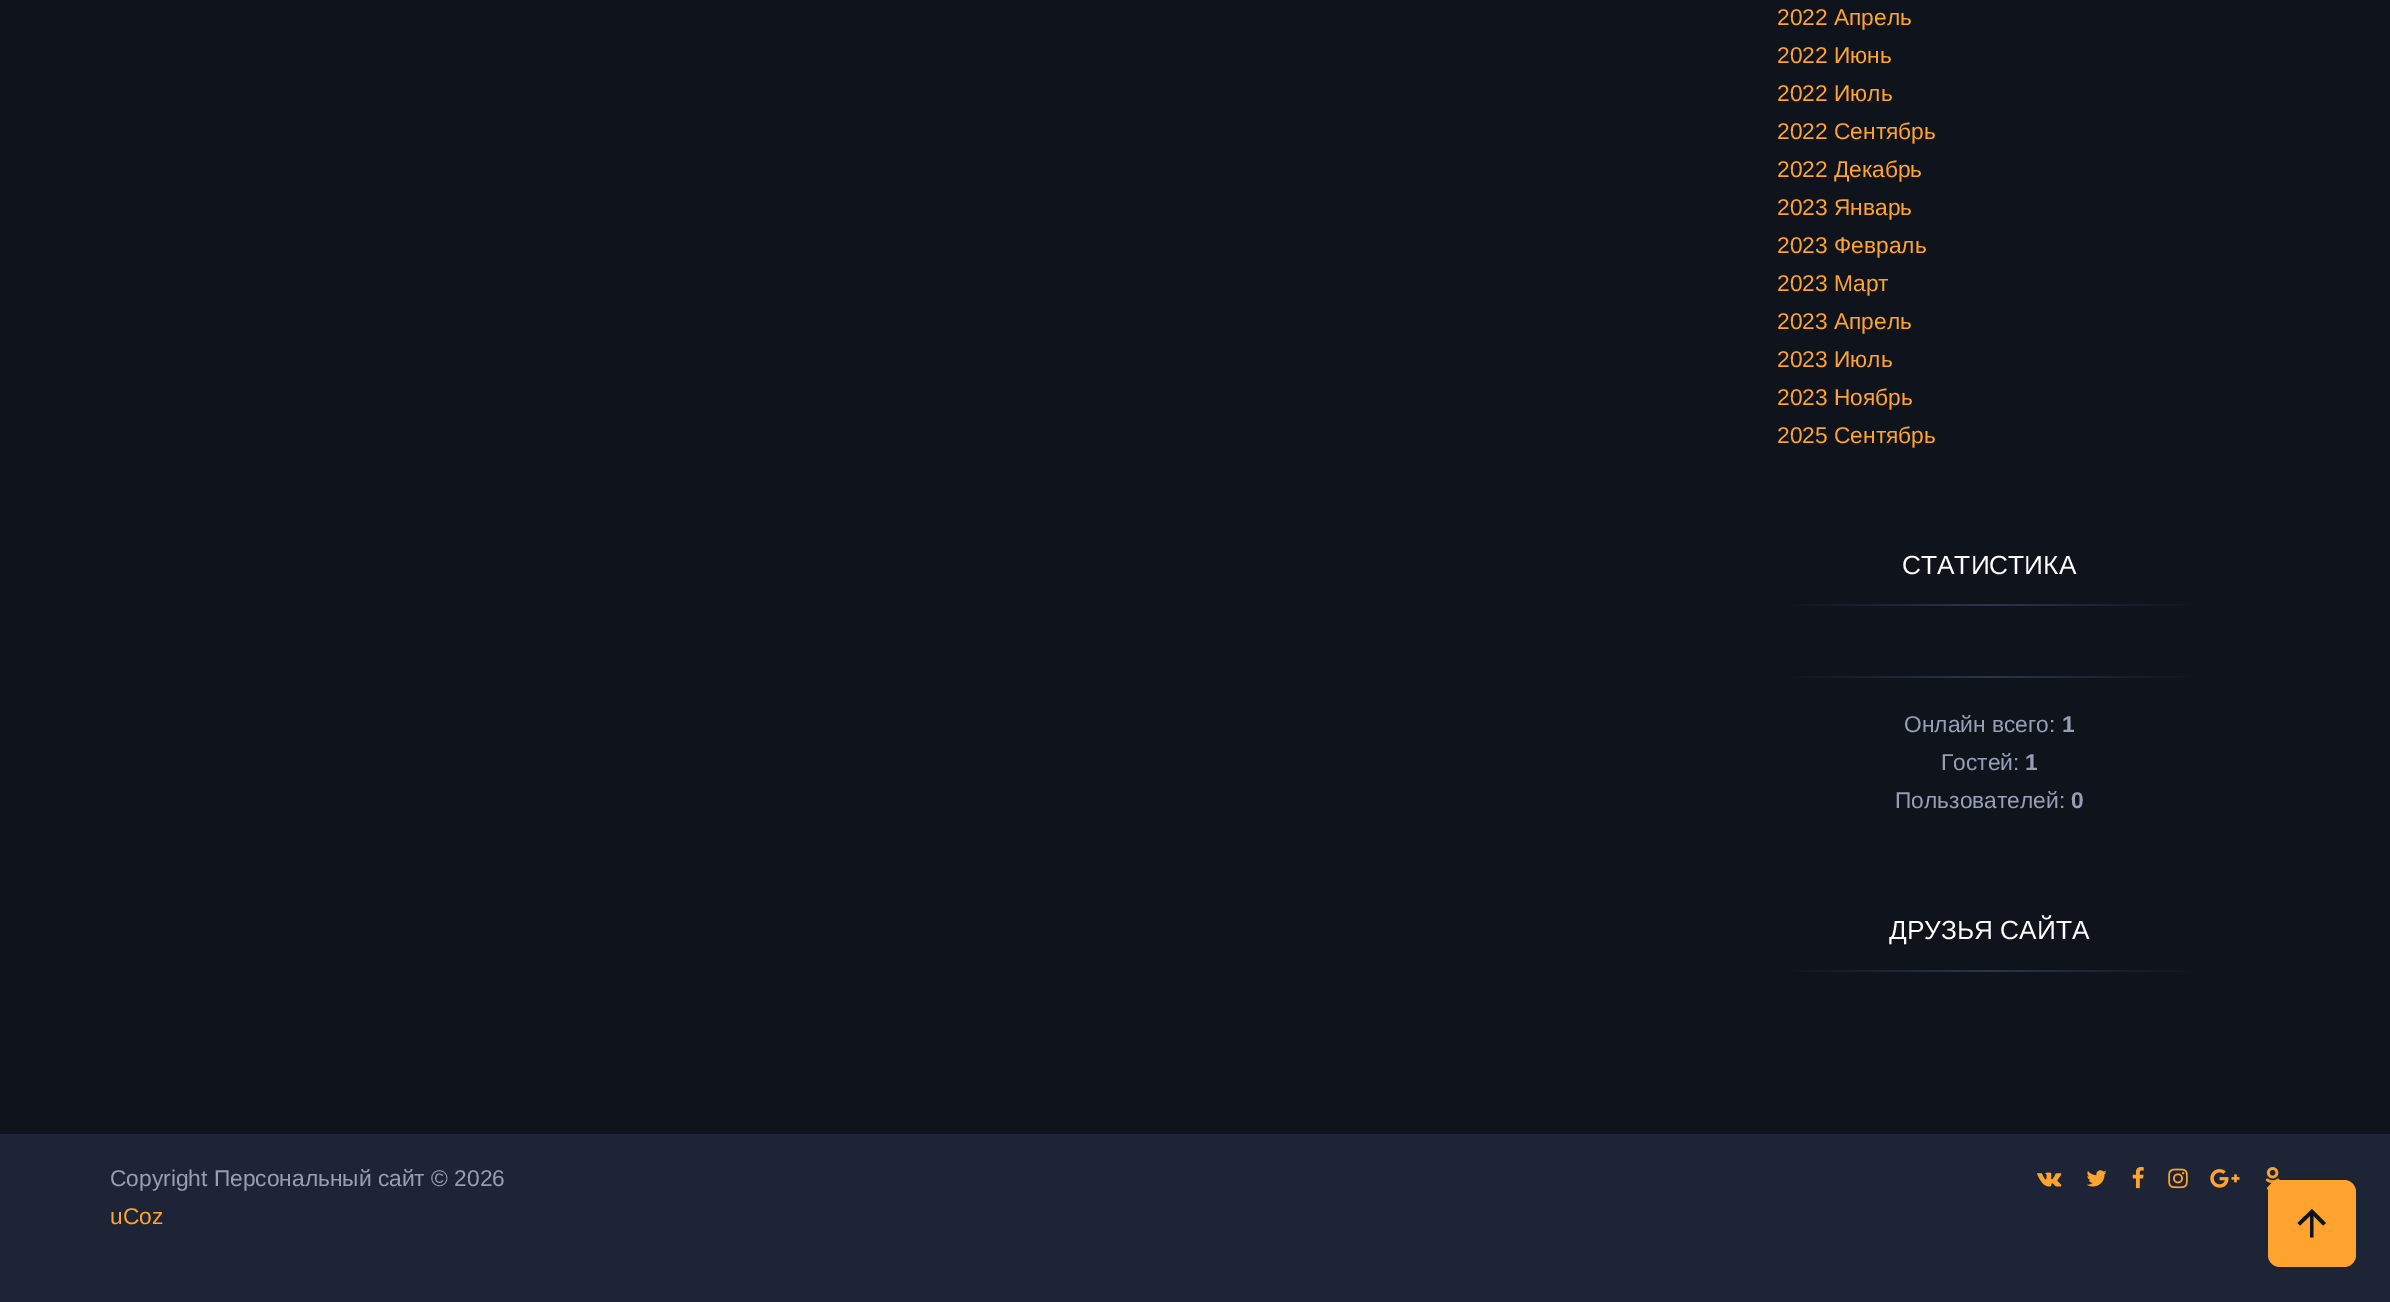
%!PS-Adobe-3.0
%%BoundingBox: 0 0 2390 1302
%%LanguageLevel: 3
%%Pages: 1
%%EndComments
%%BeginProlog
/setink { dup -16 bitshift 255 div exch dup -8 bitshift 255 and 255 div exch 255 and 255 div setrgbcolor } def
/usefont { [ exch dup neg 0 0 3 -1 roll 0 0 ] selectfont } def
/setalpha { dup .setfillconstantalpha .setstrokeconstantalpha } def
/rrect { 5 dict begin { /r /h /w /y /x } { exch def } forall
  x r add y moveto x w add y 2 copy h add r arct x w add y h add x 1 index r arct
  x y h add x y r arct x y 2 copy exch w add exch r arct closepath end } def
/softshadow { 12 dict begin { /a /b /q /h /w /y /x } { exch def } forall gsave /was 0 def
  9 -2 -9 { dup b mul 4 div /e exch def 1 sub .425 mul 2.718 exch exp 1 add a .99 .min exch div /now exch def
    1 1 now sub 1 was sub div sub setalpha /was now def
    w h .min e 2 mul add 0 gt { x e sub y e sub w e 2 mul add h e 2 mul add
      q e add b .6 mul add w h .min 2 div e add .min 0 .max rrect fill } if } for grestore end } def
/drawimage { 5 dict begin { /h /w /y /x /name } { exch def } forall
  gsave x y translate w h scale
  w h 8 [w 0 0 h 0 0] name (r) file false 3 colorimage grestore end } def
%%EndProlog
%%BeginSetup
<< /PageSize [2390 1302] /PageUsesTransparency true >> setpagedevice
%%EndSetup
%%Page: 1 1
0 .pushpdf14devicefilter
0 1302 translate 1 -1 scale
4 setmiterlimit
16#0F131C setink
0 0 2390 1302 rectfill
/Arimo-Regular 22.75 usefont
16#FEA32E setink
[
    [(2022 Апрель) 1777 25]
    [(2022 Июнь) 1777 63]
    [(2022 Июль) 1777 101]
    [(2022 Сентябрь) 1777 139]
    [(2022 Декабрь) 1777 177]
    [(2023 Январь) 1777 215]
    [(2023 Февраль) 1777 253]
    [(2023 Март) 1777 291]
    [(2023 Апрель) 1777 329]
    [(2023 Июль) 1777 367]
    [(2023 Ноябрь) 1777 405]
    [(2025 Сентябрь) 1777 443]
] { aload pop moveto show } forall
/Arimo-Regular 26.25 usefont
16#FFFFFF setink
1902 574 moveto (СТАТИСТИКА) show
gsave 1788 604 moveto 2192 604 lineto 2192 606 lineto 1788 606 lineto closepath clip newpath
<< /ShadingType 2 /ColorSpace /DeviceRGB /Coords [1778 605 2202 605] /Extend [true true] /Function << /FunctionType 3 /Domain [0 1] /Functions [<< /FunctionType 2 /Domain [0 1] /C0 [0.059 0.075 0.11] /C1 [0.169 0.212 0.31] /N 1 >> << /FunctionType 2 /Domain [0 1] /C0 [0.169 0.212 0.31] /C1 [0.059 0.075 0.11] /N 1 >>] /Bounds [0.5] /Encode [0 1 0 1] >> >> shfill grestore
gsave 1788 676 moveto 2192 676 lineto 2192 678 lineto 1788 678 lineto closepath clip newpath
<< /ShadingType 2 /ColorSpace /DeviceRGB /Coords [1778 676 2202 676] /Extend [true true] /Function << /FunctionType 3 /Domain [0 1] /Functions [<< /FunctionType 2 /Domain [0 1] /C0 [0.059 0.075 0.11] /C1 [0.169 0.212 0.31] /N 1 >> << /FunctionType 2 /Domain [0 1] /C0 [0.169 0.212 0.31] /C1 [0.059 0.075 0.11] /N 1 >>] /Bounds [0.5] /Encode [0 1 0 1] >> >> shfill grestore
/Arimo-Regular 22.75 usefont
16#989EB2 setink
1904 732 moveto (Онлайн всего:) show
/Arimo-Bold 22.75 usefont
2062 732 moveto (1) show
/Arimo-Regular 22.75 usefont
1941 770 moveto (Гостей:) show
/Arimo-Bold 22.75 usefont
2025 770 moveto (1) show
/Arimo-Regular 22.75 usefont
1895 808 moveto (Пользователей:) show
/Arimo-Bold 22.75 usefont
2071 808 moveto (0) show
/Arimo-Regular 26.25 usefont
16#FFFFFF setink
1889 939 moveto (ДРУЗЬЯ САЙТА) show
gsave 1788 970 moveto 2192 970 lineto 2192 972 lineto 1788 972 lineto closepath clip newpath
<< /ShadingType 2 /ColorSpace /DeviceRGB /Coords [1778 970 2202 970] /Extend [true true] /Function << /FunctionType 3 /Domain [0 1] /Functions [<< /FunctionType 2 /Domain [0 1] /C0 [0.059 0.075 0.11] /C1 [0.169 0.212 0.31] /N 1 >> << /FunctionType 2 /Domain [0 1] /C0 [0.169 0.212 0.31] /C1 [0.059 0.075 0.11] /N 1 >>] /Bounds [0.5] /Encode [0 1 0 1] >> >> shfill grestore
16#1D2436 setink
0 1134 2390 168 rectfill
(img6.raw) 2265 1167 15 23 drawimage
16#000000 setink
2265 1176 94 95 16 8 0.09 softshadow
16#FEA32E setink
2268 1180 88 87 12 rrect fill
16#0F131C setink
2297.5 1223 moveto 2312 1209 lineto 2326 1223 lineto 2323 1225.5 lineto 2313.5 1216 lineto 2313.5 1237.5 lineto 2310 1237.5 lineto 2310 1216 lineto 2300 1225.5 lineto closepath fill
/Arimo-Regular 22.75 usefont
16#989EB2 setink
110 1186 moveto (Copyright Персональный сайт © 2026) show
16#FEA32E setink
110 1224 moveto (uCoz) show
(img1.raw) 2037 1172 25 15 drawimage
(img2.raw) 2086 1170 21 17 drawimage
(img3.raw) 2132 1167 12 22 drawimage
(img4.raw) 2168 1168 20 21 drawimage
(img5.raw) 2210 1169 30 19 drawimage
.poppdf14devicefilter showpage
%%EOF
